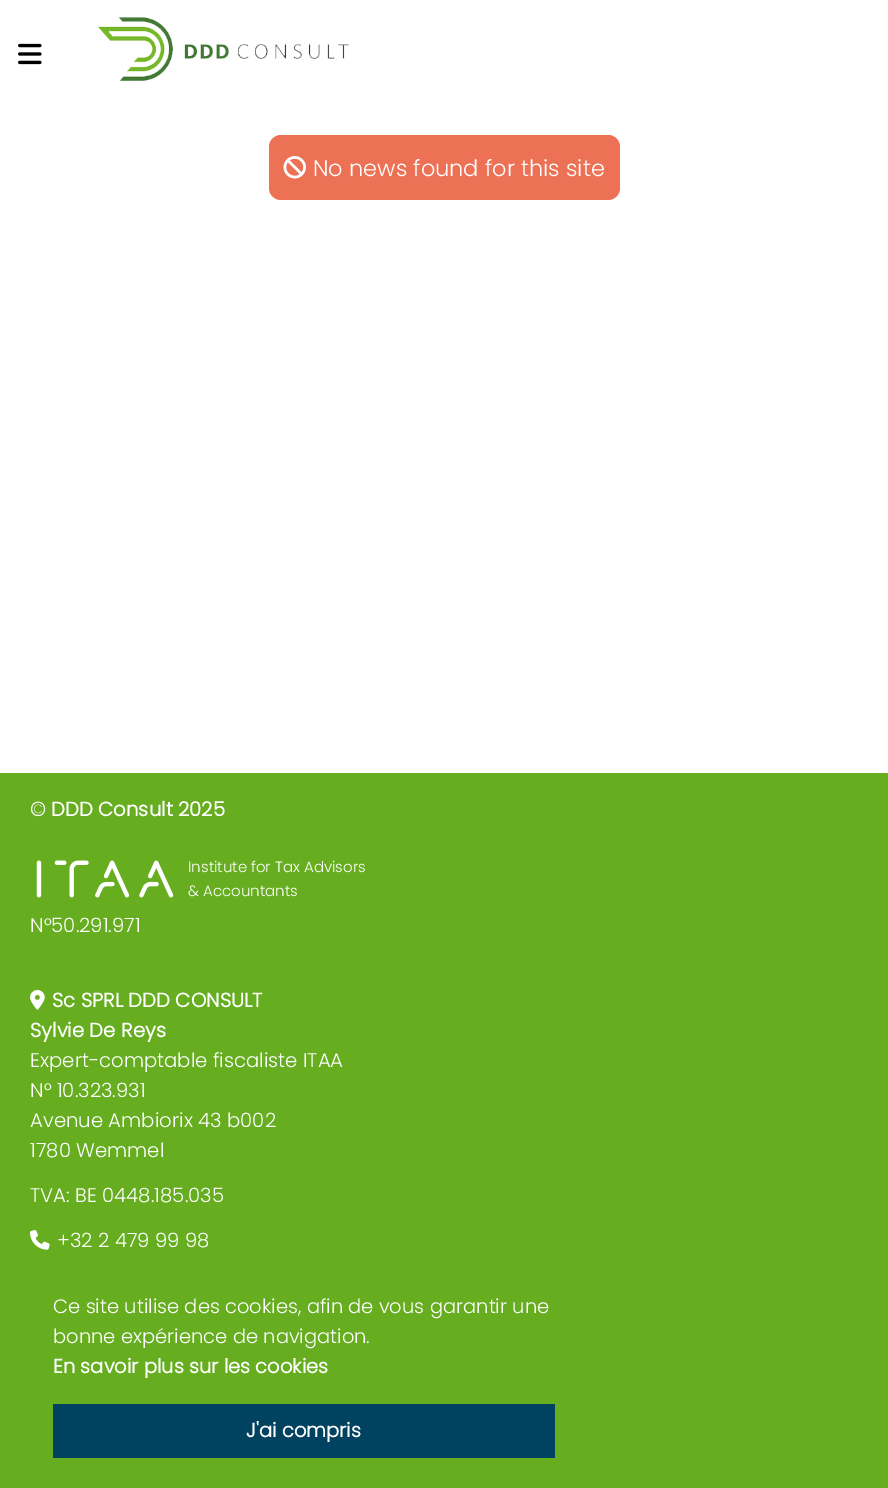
%!PS-Adobe-3.0
%%BoundingBox: 0 0 888 1488
%%LanguageLevel: 3
%%Pages: 1
%%EndComments
%%BeginProlog
/setink { dup -16 bitshift 255 div exch dup -8 bitshift 255 and 255 div exch 255 and 255 div setrgbcolor } def
/usefont { [ exch dup neg 0 0 3 -1 roll 0 0 ] selectfont } def
/rrect { 5 dict begin { /r /h /w /y /x } { exch def } forall
  x r add y moveto x w add y 2 copy h add r arct x w add y h add x 1 index r arct
  x y h add x y r arct x y 2 copy exch w add exch r arct closepath end } def
/drawimage { 5 dict begin { /h /w /y /x /name } { exch def } forall
  gsave x y translate w h scale
  w h 8 [w 0 0 h 0 0] name (r) file false 3 colorimage grestore end } def
%%EndProlog
%%BeginSetup
<< /PageSize [888 1488] >> setpagedevice
%%EndSetup
%%Page: 1 1
0 1488 translate 1 -1 scale
4 setmiterlimit
16#FFFFFF setink
0 0 888 1488 rectfill
(img1.raw) 18 43 24 22 drawimage
(img2.raw) 97 17 252 64 drawimage
16#EC7155 setink
269 135 351 65 12 rrect fill
(img3.raw) 283 156 23 23 drawimage
/Poppins-Light 22.5 usefont
16#FFFFFF setink
313 176 moveto (No news found for this site) show
16#66AE20 setink
0 773 888 715 rectfill
/Poppins-Bold 19.7 usefont
16#FFFFFF setink
30 816 moveto (© DDD Consult 2025) show
(img4.raw) 36 860 138 38 drawimage
/Poppins-Light 15 usefont
188 872 moveto (Institute for Tax Advisors) show
188 896 moveto (& Accountants) show
/Poppins-Light 19.7 usefont
30 932 moveto (N°50.291.971) show
(img5.raw) 30 990 15 20 drawimage
/Poppins-Bold 19.7 usefont
52 1007 moveto (Sc SPRL DDD CONSULT) show
30 1037 moveto (Sylvie De Reys) show
/Poppins-Light 19.7 usefont
[
    [(Expert-comptable fiscaliste ITAA) 30 1067]
    [(N° 10.323.931) 30 1097]
    [(Avenue Ambiorix 43 b002) 30 1127]
    [(1780 Wemmel) 30 1157]
    [(TVA: BE 0448.185.035) 30 1202]
] { aload pop moveto show } forall
(img6.raw) 30 1230 20 20 drawimage
57 1247 moveto (+32 2 479 99 98) show
/Poppins-Light 19.5 usefont
53 1313 moveto (Ce site utilise des cookies, afin de vous garantir une) show
53 1343 moveto (bonne expérience de navigation.) show
/Poppins-Bold 19.5 usefont
53 1373 moveto (En savoir plus sur les cookies) show
16#014261 setink
53 1404 502 54 rectfill
16#FFFFFF setink
246 1437 moveto (J'ai compris) show
showpage
%%EOF
